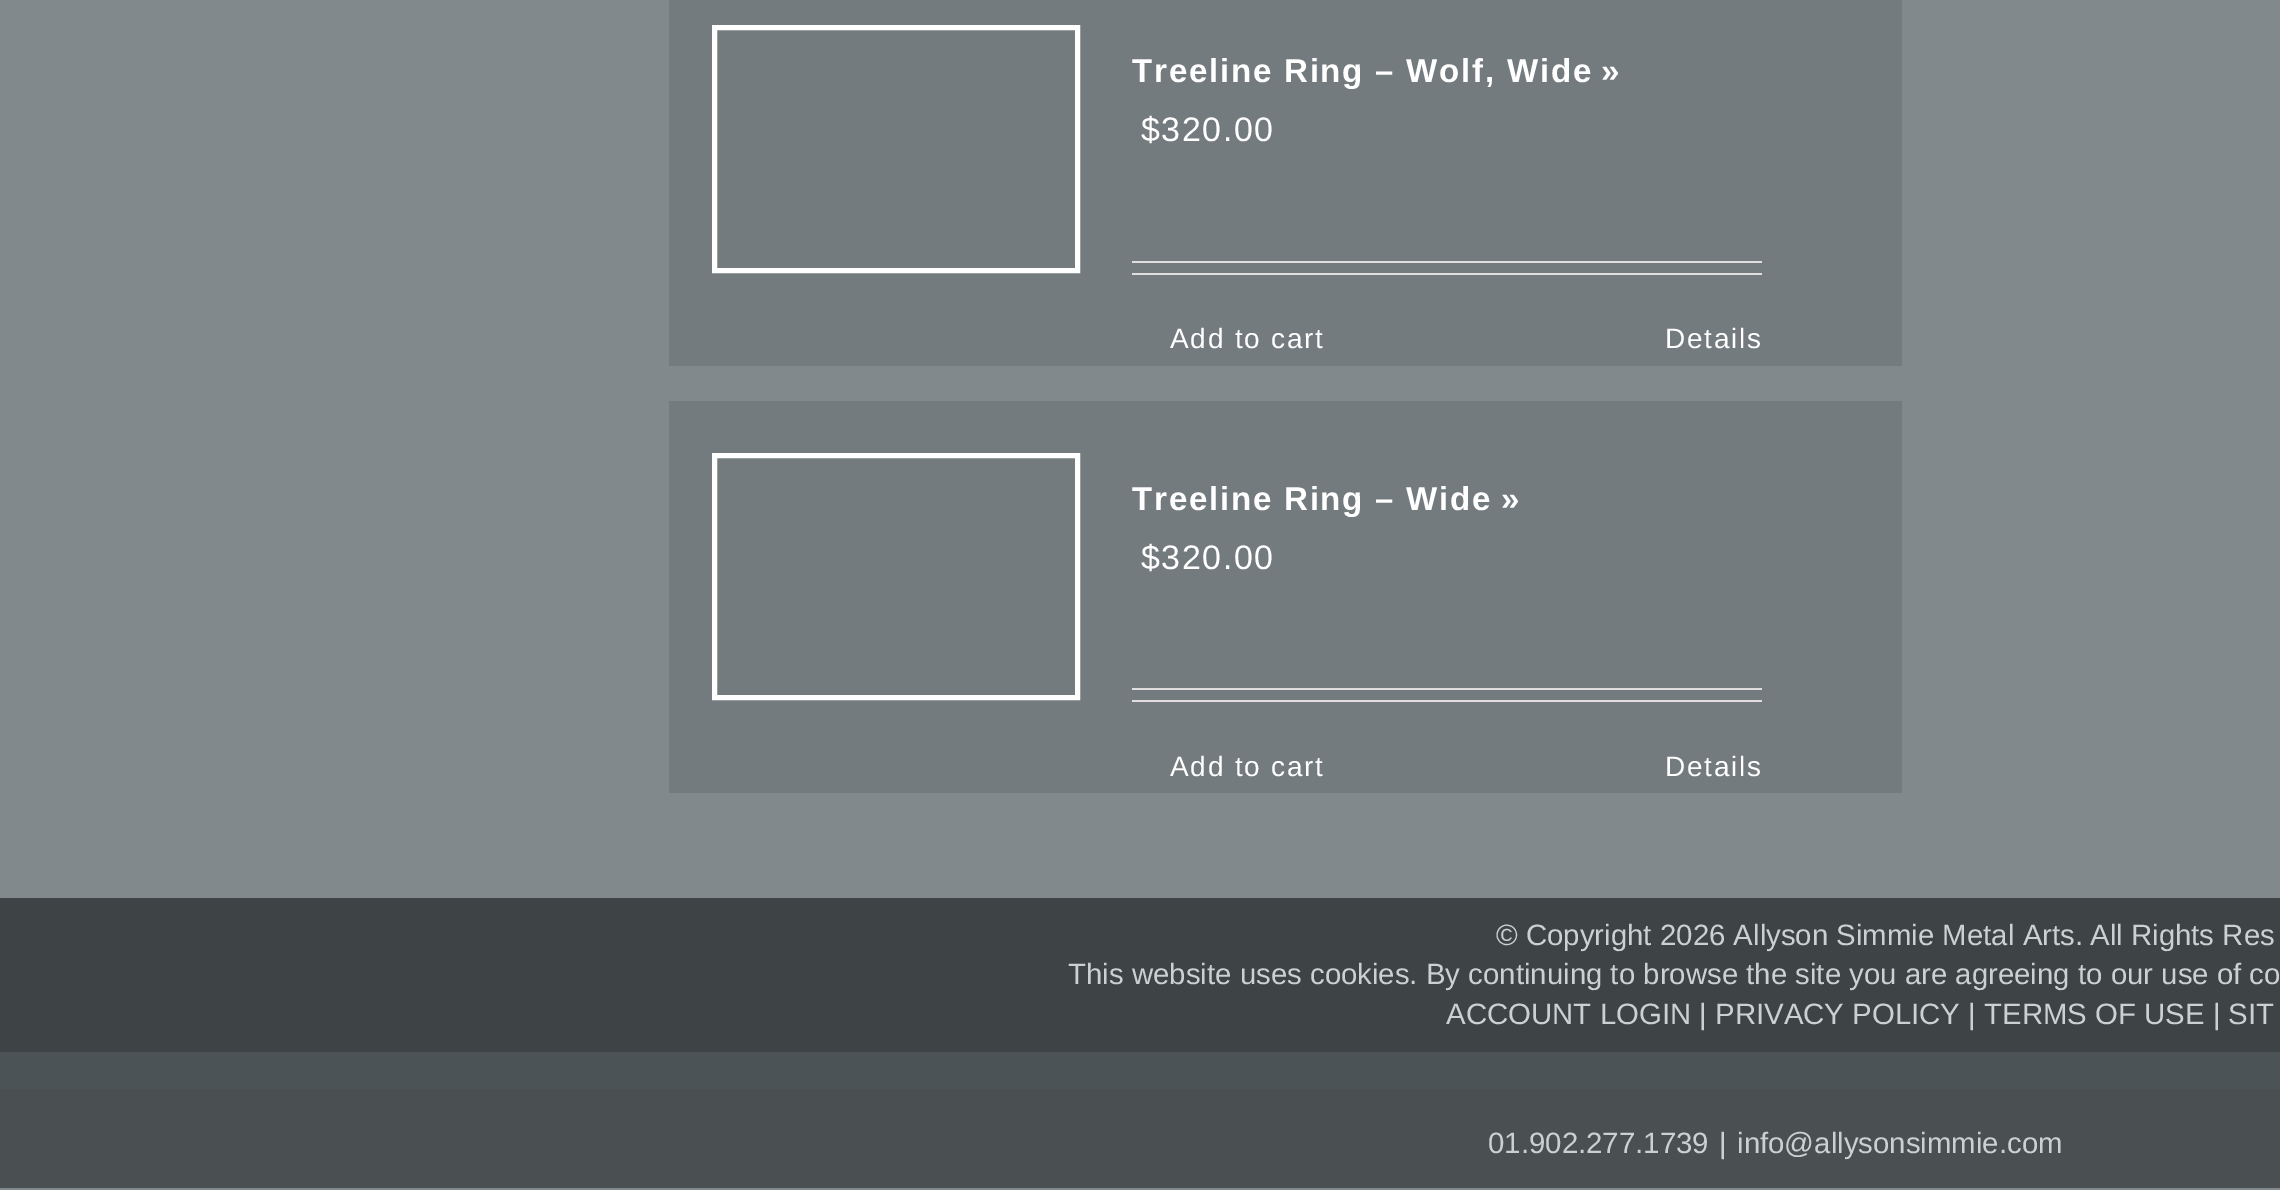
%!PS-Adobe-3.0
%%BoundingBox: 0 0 2280 1190
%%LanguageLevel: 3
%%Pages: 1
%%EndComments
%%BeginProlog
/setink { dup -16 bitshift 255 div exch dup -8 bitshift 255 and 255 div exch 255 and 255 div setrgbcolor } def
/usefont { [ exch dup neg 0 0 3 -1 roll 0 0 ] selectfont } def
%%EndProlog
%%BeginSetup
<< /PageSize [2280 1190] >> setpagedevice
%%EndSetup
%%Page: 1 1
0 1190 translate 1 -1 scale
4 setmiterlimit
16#4B5356 setink
0 0 2280 1190 rectfill
16#81898C setink
0 0 2280 898 rectfill
16#747B7E setink
669 0 1233 366 rectfill
16#FFFFFF setink
5 setlinewidth
714.5 27.5 363 243 rectstroke
/Arimo-Bold 33.1 usefont
1132 82 moveto 1.75 0 (Treeline Ring – Wolf, Wide) ashow
1601 82 moveto 1.75 0 (») ashow
/Arimo-Regular 34 usefont
1141 141 moveto 1.5 0 ($320.00) ashow
16#E0DEDE setink
1132 261 630 2 rectfill
1132 273 630 2 rectfill
/Arimo-Regular 28 usefont
16#FFFFFF setink
1170 348 moveto 1.75 0 (Add to cart) ashow
1665 348 moveto 1.75 0 (Details) ashow
16#747B7E setink
669 401 1233 392 rectfill
16#FFFFFF setink
714.5 455.5 363 242 rectstroke
/Arimo-Bold 33.1 usefont
1132 510 moveto 1.75 0 (Treeline Ring – Wide) ashow
1501 510 moveto 1.75 0 (») ashow
/Arimo-Regular 34 usefont
1141 569 moveto 1.5 0 ($320.00) ashow
16#E0DEDE setink
1132 688 630 2 rectfill
1132 700 630 2 rectfill
/Arimo-Regular 28 usefont
16#FFFFFF setink
1170 776 moveto 1.75 0 (Add to cart) ashow
1665 776 moveto 1.75 0 (Details) ashow
16#3E4345 setink
0 898 2280 154 rectfill
/Arimo-Regular 29.4 usefont
16#CDD0D1 setink
[
    [(© Copyright 2026 Allyson Simmie Metal Arts.) 1496 945]
    [(All Rights Res) 2090 945]
    [(This website uses cookies. By continuing to browse the site you are agreeing to our use of co) 1068 984]
    [(ACCOUNT LOGIN | PRIVACY POLICY | TERMS OF USE | SIT) 1446 1024]
] { aload pop moveto show } forall
16#4A5052 setink
0 1089 2280 99 rectfill
16#81898C setink
0 1188 2280 2 rectfill
16#CDD0D1 setink
[
    [(01.902.277.1739) 1488 1153]
    [(|) 1719 1153]
    [(info@allysonsimmie.com) 1737 1153]
] { aload pop moveto show } forall
showpage
%%EOF
